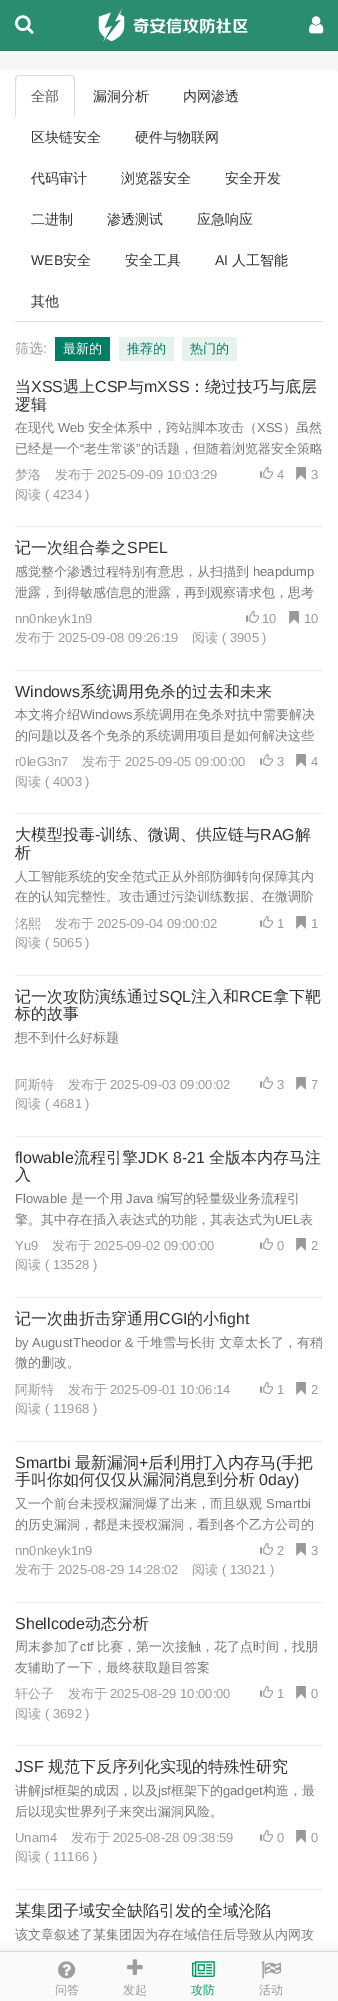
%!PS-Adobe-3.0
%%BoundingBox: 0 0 338 2001
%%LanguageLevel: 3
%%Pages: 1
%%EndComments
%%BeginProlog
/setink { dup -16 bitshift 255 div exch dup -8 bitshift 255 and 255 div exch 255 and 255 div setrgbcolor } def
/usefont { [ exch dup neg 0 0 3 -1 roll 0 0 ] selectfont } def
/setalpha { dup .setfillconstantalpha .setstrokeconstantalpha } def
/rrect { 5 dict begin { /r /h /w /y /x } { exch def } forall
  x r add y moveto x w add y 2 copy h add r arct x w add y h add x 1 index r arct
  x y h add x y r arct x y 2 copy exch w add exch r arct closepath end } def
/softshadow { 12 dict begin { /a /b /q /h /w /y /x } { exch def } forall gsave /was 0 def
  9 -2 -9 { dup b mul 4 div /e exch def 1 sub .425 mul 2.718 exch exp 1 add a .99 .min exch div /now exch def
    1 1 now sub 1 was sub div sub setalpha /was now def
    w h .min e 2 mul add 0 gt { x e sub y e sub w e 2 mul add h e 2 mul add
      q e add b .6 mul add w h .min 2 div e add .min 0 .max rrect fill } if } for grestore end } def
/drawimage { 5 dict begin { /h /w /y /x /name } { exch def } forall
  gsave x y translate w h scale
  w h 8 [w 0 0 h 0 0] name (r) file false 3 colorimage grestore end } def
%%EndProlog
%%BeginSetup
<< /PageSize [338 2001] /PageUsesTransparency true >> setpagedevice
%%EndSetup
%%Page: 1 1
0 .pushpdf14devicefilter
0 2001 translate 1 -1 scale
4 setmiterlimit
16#F6F6F6 setink
0 0 338 2001 rectfill
16#FFFFFF setink
0 70 338 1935 4 rrect fill
16#DDDDDD setink
15 321 308 1 rectfill
19 75 moveto 16 76 lineto 17 77 lineto 18 76 lineto 71 76 lineto 73 77 lineto 74 76 lineto 71 75 lineto closepath fill
75 117 moveto 75 79 lineto 75 78 74 77 74 76 curveto 73 77 lineto 75 79 74 111 74 116 curveto closepath 15 117 moveto 16 116 lineto 16 111 15 79 17 77 curveto 16 76 lineto 15 79 lineto closepath fill
/WenQuanYiZenHei-Medium 14 usefont
16#555555 setink
31 101 moveto (全部) show
16#333333 setink
[
    [(漏洞分析) 93 101]
    [(内网渗透) 183 101]
    [(区块链安全) 31 142]
    [(硬件与物联网) 135 142]
    [(代码审计) 31 183]
    [(浏览器安全) 121 183]
    [(安全开发) 225 183]
    [(二进制) 31 224]
    [(渗透测试) 107 224]
    [(应急响应) 197 224]
] { aload pop moveto show } forall
/LiberationSans-Regular 14 usefont
31 265 moveto (WEB) show
/WenQuanYiZenHei-Medium 14 usefont
63 265 moveto (安全) show
125 265 moveto (安全工具) show
/LiberationSans-Regular 14 usefont
215 265 moveto (AI) show
/WenQuanYiZenHei-Medium 14 usefont
232 265 moveto (人工智能) show
31 306 moveto (其他) show
16#999999 setink
15 353 moveto (筛选) show
/LiberationSans-Regular 14 usefont
43 353 moveto (:) show
16#017E66 setink
55 337 55 24 rectfill
/WenQuanYiZenHei-Medium 13 usefont
16#FFFFFF setink
63 353 moveto (最新的) show
16#E7F2ED setink
119 337 55 24 rectfill
16#017E66 setink
127 353 moveto (推荐的) show
16#E7F2ED setink
182 337 55 24 rectfill
16#017E66 setink
190 353 moveto (热门的) show
16#EEEEEE setink
15 526 308 1 rectfill
/WenQuanYiZenHei-Medium 16 usefont
16#333333 setink
15 392 moveto (当) show
/LiberationSans-Regular 16 usefont
31 392 moveto (XSS) show
/WenQuanYiZenHei-Medium 16 usefont
63 392 moveto (遇上) show
/LiberationSans-Regular 16 usefont
95 392 moveto (CSP) show
/WenQuanYiZenHei-Medium 16 usefont
128 392 moveto (与) show
/LiberationSans-Regular 16 usefont
144 392 moveto (mXSS) show
/WenQuanYiZenHei-Medium 16 usefont
189 392 moveto (：绕过技巧与底层) show
15 410 moveto (逻辑) show
/WenQuanYiZenHei-Medium 13 usefont
16#777777 setink
15 432 moveto (在现代) show
/LiberationSans-Regular 13 usefont
58 432 moveto (Web) show
/WenQuanYiZenHei-Medium 13 usefont
88 432 moveto (安全体系中，跨站脚本攻击（) show
/LiberationSans-Regular 13 usefont
257 432 moveto (XSS) show
/WenQuanYiZenHei-Medium 13 usefont
283 432 moveto (）虽然) show
15 453 moveto (已经是一个) show
/LiberationSans-Regular 13 usefont
80 453 moveto (“) show
/WenQuanYiZenHei-Medium 13 usefont
84 453 moveto (老生常谈) show
/LiberationSans-Regular 13 usefont
136 453 moveto (”) show
/WenQuanYiZenHei-Medium 13 usefont
141 453 moveto (的话题，但随着浏览器安全策略) show
16#999999 setink
15 479 moveto (梦洛) show
55 479 moveto (发布于) show
/LiberationSans-Regular 13 usefont
97 479 moveto (2025-09-09 10:03:29) show
(img1.raw) 260 467 13 12 drawimage
277 479 moveto (4) show
(img2.raw) 296 467 10 13 drawimage
311 479 moveto (3) show
/WenQuanYiZenHei-Medium 13 usefont
15 499 moveto (阅读) show
/LiberationSans-Regular 13 usefont
45 499 moveto (\( 4234 \)) show
16#EEEEEE setink
15 670 308 1 rectfill
/WenQuanYiZenHei-Medium 16 usefont
16#333333 setink
15 553 moveto (记一次组合拳之) show
/LiberationSans-Regular 16 usefont
127 553 moveto (SPEL) show
/WenQuanYiZenHei-Medium 13 usefont
16#777777 setink
15 576 moveto (感觉整个渗透过程特别有意思，从扫描到) show
/LiberationSans-Regular 13 usefont
253 576 moveto (heapdump) show
/WenQuanYiZenHei-Medium 13 usefont
15 597 moveto (泄露，到得敏感信息的泄露，再到观察请求包，思考) show
/LiberationSans-Regular 13 usefont
16#999999 setink
15 623 moveto (nn0nkeyk1n9) show
(img1.raw) 246 611 13 12 drawimage
262 623 moveto (10) show
(img2.raw) 289 611 10 13 drawimage
304 623 moveto (10) show
/WenQuanYiZenHei-Medium 13 usefont
15 642 moveto (发布于) show
/LiberationSans-Regular 13 usefont
58 642 moveto (2025-09-08 09:26:19) show
/WenQuanYiZenHei-Medium 13 usefont
192 642 moveto (阅读) show
/LiberationSans-Regular 13 usefont
222 642 moveto (\( 3905 \)) show
16#EEEEEE setink
15 813 308 1 rectfill
/LiberationSans-Regular 16 usefont
16#333333 setink
15 697 moveto (Windows) show
/WenQuanYiZenHei-Medium 16 usefont
80 697 moveto (系统调用免杀的过去和未来) show
/WenQuanYiZenHei-Medium 13 usefont
16#777777 setink
15 719 moveto (本文将介绍) show
/LiberationSans-Regular 13 usefont
80 719 moveto (Windows) show
/WenQuanYiZenHei-Medium 13 usefont
133 719 moveto (系统调用在免杀对抗中需要解决) show
15 740 moveto (的问题以及各个免杀的系统调用项目是如何解决这些) show
/LiberationSans-Regular 13 usefont
16#999999 setink
15 766 moveto (r0leG3n7) show
/WenQuanYiZenHei-Medium 13 usefont
82 766 moveto (发布于) show
/LiberationSans-Regular 13 usefont
125 766 moveto (2025-09-05 09:00:00) show
(img1.raw) 260 754 13 12 drawimage
277 766 moveto (3) show
(img2.raw) 296 754 10 13 drawimage
311 766 moveto (4) show
/WenQuanYiZenHei-Medium 13 usefont
15 786 moveto (阅读) show
/LiberationSans-Regular 13 usefont
45 786 moveto (\( 4003 \)) show
16#EEEEEE setink
15 975 308 1 rectfill
/WenQuanYiZenHei-Medium 16 usefont
16#333333 setink
15 840 moveto (大模型投毒) show
/LiberationSans-Regular 16 usefont
95 840 moveto (-) show
/WenQuanYiZenHei-Medium 16 usefont
100 840 moveto (训练、微调、供应链与) show
/LiberationSans-Regular 16 usefont
260 840 moveto (RAG) show
/WenQuanYiZenHei-Medium 16 usefont
295 840 moveto (解) show
15 858 moveto (析) show
/WenQuanYiZenHei-Medium 13 usefont
16#777777 setink
15 881 moveto (人工智能系统的安全范式正从外部防御转向保障其内) show
15 901 moveto (在的认知完整性。攻击通过污染训练数据、在微调阶) show
16#999999 setink
15 928 moveto (洺熙) show
55 928 moveto (发布于) show
/LiberationSans-Regular 13 usefont
97 928 moveto (2025-09-04 09:00:02) show
(img1.raw) 260 916 13 12 drawimage
277 928 moveto (1) show
(img2.raw) 296 916 10 13 drawimage
311 928 moveto (1) show
/WenQuanYiZenHei-Medium 13 usefont
15 947 moveto (阅读) show
/LiberationSans-Regular 13 usefont
45 947 moveto (\( 5065 \)) show
16#EEEEEE setink
15 1136 308 1 rectfill
/WenQuanYiZenHei-Medium 16 usefont
16#333333 setink
15 1002 moveto (记一次攻防演练通过) show
/LiberationSans-Regular 16 usefont
159 1002 moveto (SQL) show
/WenQuanYiZenHei-Medium 16 usefont
191 1002 moveto (注入和) show
/LiberationSans-Regular 16 usefont
239 1002 moveto (RCE) show
/WenQuanYiZenHei-Medium 16 usefont
273 1002 moveto (拿下靶) show
15 1019 moveto (标的故事) show
/WenQuanYiZenHei-Medium 13 usefont
16#777777 setink
15 1042 moveto (想不到什么好标题) show
16#999999 setink
15 1089 moveto (阿斯特) show
68 1089 moveto (发布于) show
/LiberationSans-Regular 13 usefont
110 1089 moveto (2025-09-03 09:00:02) show
(img1.raw) 260 1077 13 12 drawimage
277 1089 moveto (3) show
(img2.raw) 296 1077 10 13 drawimage
311 1089 moveto (7) show
/WenQuanYiZenHei-Medium 13 usefont
15 1108 moveto (阅读) show
/LiberationSans-Regular 13 usefont
45 1108 moveto (\( 4681 \)) show
16#EEEEEE setink
15 1297 308 1 rectfill
/LiberationSans-Regular 16 usefont
16#333333 setink
15 1163 moveto (flowable) show
/WenQuanYiZenHei-Medium 16 usefont
74 1163 moveto (流程引擎) show
/LiberationSans-Regular 16 usefont
138 1163 moveto (JDK 8-21) show
/WenQuanYiZenHei-Medium 16 usefont
209 1163 moveto (全版本内存马注) show
15 1180 moveto (入) show
/LiberationSans-Regular 13 usefont
16#777777 setink
15 1203 moveto (Flowable) show
/WenQuanYiZenHei-Medium 13 usefont
71 1203 moveto (是一个用) show
/LiberationSans-Regular 13 usefont
126 1203 moveto (Java) show
/WenQuanYiZenHei-Medium 13 usefont
157 1203 moveto (编写的轻量级业务流程引) show
15 1224 moveto (擎。其中存在插入表达式的功能，其表达式为) show
/LiberationSans-Regular 13 usefont
275 1224 moveto (UEL) show
/WenQuanYiZenHei-Medium 13 usefont
300 1224 moveto (表) show
/LiberationSans-Regular 13 usefont
16#999999 setink
15 1250 moveto (Yu9) show
/WenQuanYiZenHei-Medium 13 usefont
52 1250 moveto (发布于) show
/LiberationSans-Regular 13 usefont
94 1250 moveto (2025-09-02 09:00:00) show
(img1.raw) 260 1238 13 12 drawimage
277 1250 moveto (0) show
(img2.raw) 296 1238 10 13 drawimage
311 1250 moveto (2) show
/WenQuanYiZenHei-Medium 13 usefont
15 1269 moveto (阅读) show
/LiberationSans-Regular 13 usefont
45 1269 moveto (\( 13528 \)) show
16#EEEEEE setink
15 1441 308 1 rectfill
/WenQuanYiZenHei-Medium 16 usefont
16#333333 setink
15 1324 moveto (记一次曲折击穿通用) show
/LiberationSans-Regular 16 usefont
159 1324 moveto (CGI) show
/WenQuanYiZenHei-Medium 16 usefont
187 1324 moveto (的小) show
/LiberationSans-Regular 16 usefont
219 1324 moveto (fight) show
/LiberationSans-Regular 13 usefont
16#777777 setink
15 1347 moveto (by AugustTheodor &) show
/WenQuanYiZenHei-Medium 13 usefont
137 1347 moveto (千堆雪与长街 文章太长了，有稍) show
15 1367 moveto (微的删改。) show
16#999999 setink
15 1394 moveto (阿斯特) show
68 1394 moveto (发布于) show
/LiberationSans-Regular 13 usefont
110 1394 moveto (2025-09-01 10:06:14) show
(img1.raw) 260 1382 13 12 drawimage
277 1394 moveto (1) show
(img2.raw) 296 1382 10 13 drawimage
311 1394 moveto (2) show
/WenQuanYiZenHei-Medium 13 usefont
15 1413 moveto (阅读) show
/LiberationSans-Regular 13 usefont
45 1413 moveto (\( 11968 \)) show
16#EEEEEE setink
15 1602 308 1 rectfill
/LiberationSans-Regular 16 usefont
16#333333 setink
15 1468 moveto (Smartbi) show
/WenQuanYiZenHei-Medium 16 usefont
75 1468 moveto (最新漏洞) show
/LiberationSans-Regular 16 usefont
139 1468 moveto (+) show
/WenQuanYiZenHei-Medium 16 usefont
148 1468 moveto (后利用打入内存马) show
/LiberationSans-Regular 16 usefont
276 1468 moveto (\() show
/WenQuanYiZenHei-Medium 16 usefont
281 1468 moveto (手把) show
15 1485 moveto (手叫你如何仅仅从漏洞消息到分析) show
/LiberationSans-Regular 16 usefont
259 1485 moveto (0day\)) show
/WenQuanYiZenHei-Medium 13 usefont
16#777777 setink
15 1508 moveto (又一个前台未授权漏洞爆了出来，而且纵观) show
/LiberationSans-Regular 13 usefont
266 1508 moveto (Smartbi) show
/WenQuanYiZenHei-Medium 13 usefont
15 1529 moveto (的历史漏洞，都是未授权漏洞，看到各个乙方公司的) show
/LiberationSans-Regular 13 usefont
16#999999 setink
15 1555 moveto (nn0nkeyk1n9) show
(img1.raw) 260 1543 13 12 drawimage
277 1555 moveto (2) show
(img2.raw) 296 1543 10 13 drawimage
311 1555 moveto (3) show
/WenQuanYiZenHei-Medium 13 usefont
15 1574 moveto (发布于) show
/LiberationSans-Regular 13 usefont
58 1574 moveto (2025-08-29 14:28:02) show
/WenQuanYiZenHei-Medium 13 usefont
192 1574 moveto (阅读) show
/LiberationSans-Regular 13 usefont
222 1574 moveto (\( 13021 \)) show
16#EEEEEE setink
15 1745 308 1 rectfill
/LiberationSans-Regular 16 usefont
16#333333 setink
15 1629 moveto (Shellcode) show
/WenQuanYiZenHei-Medium 16 usefont
85 1629 moveto (动态分析) show
/WenQuanYiZenHei-Medium 13 usefont
16#777777 setink
15 1651 moveto (周末参加了) show
/LiberationSans-Regular 13 usefont
80 1651 moveto (ctf) show
/WenQuanYiZenHei-Medium 13 usefont
97 1651 moveto (比赛，第一次接触，花了点时间，找朋) show
15 1672 moveto (友辅助了一下，最终获取题目答案) show
16#999999 setink
15 1698 moveto (轩公子) show
68 1698 moveto (发布于) show
/LiberationSans-Regular 13 usefont
110 1698 moveto (2025-08-29 10:00:00) show
(img1.raw) 260 1686 13 12 drawimage
277 1698 moveto (1) show
(img2.raw) 296 1686 10 13 drawimage
311 1698 moveto (0) show
/WenQuanYiZenHei-Medium 13 usefont
15 1718 moveto (阅读) show
/LiberationSans-Regular 13 usefont
45 1718 moveto (\( 3692 \)) show
16#EEEEEE setink
15 1889 308 1 rectfill
/LiberationSans-Regular 16 usefont
16#333333 setink
15 1772 moveto (JSF) show
/WenQuanYiZenHei-Medium 16 usefont
48 1772 moveto (规范下反序列化实现的特殊性研究) show
/WenQuanYiZenHei-Medium 13 usefont
16#777777 setink
15 1795 moveto (讲解) show
/LiberationSans-Regular 13 usefont
41 1795 moveto (jsf) show
/WenQuanYiZenHei-Medium 13 usefont
54 1795 moveto (框架的成因，以及) show
/LiberationSans-Regular 13 usefont
158 1795 moveto (jsf) show
/WenQuanYiZenHei-Medium 13 usefont
171 1795 moveto (框架下的) show
/LiberationSans-Regular 13 usefont
223 1795 moveto (gadget) show
/WenQuanYiZenHei-Medium 13 usefont
263 1795 moveto (构造，最) show
15 1816 moveto (后以现实世界列子来突出漏洞风险。) show
/LiberationSans-Regular 13 usefont
16#999999 setink
15 1842 moveto (Unam4) show
/WenQuanYiZenHei-Medium 13 usefont
71 1842 moveto (发布于) show
/LiberationSans-Regular 13 usefont
113 1842 moveto (2025-08-28 09:38:59) show
(img1.raw) 260 1830 13 12 drawimage
277 1842 moveto (0) show
(img2.raw) 296 1830 10 13 drawimage
311 1842 moveto (0) show
/WenQuanYiZenHei-Medium 13 usefont
15 1861 moveto (阅读) show
/LiberationSans-Regular 13 usefont
45 1861 moveto (\( 11166 \)) show
/WenQuanYiZenHei-Medium 16 usefont
16#333333 setink
15 1916 moveto (某集团子域安全缺陷引发的全域沦陷) show
/WenQuanYiZenHei-Medium 13 usefont
16#777777 setink
15 1939 moveto (该文章叙述了某集团因为存在域信任后导致从内网攻) show
16#2A8C70 setink
0 0 338 50 rectfill
16#2B7A5C setink
0 50 338 1 rectfill
(img3.raw) 15 15 19 19 drawimage
(img4.raw) 98 8 150 34 drawimage
(img5.raw) 309 16 15 18 drawimage
16#000000 setink
0 1950 338 49 0 5 0.1 softshadow
0.1 setalpha
0 1951 338 1 rectfill
1 setalpha
16#FAFAFA setink
0 1952 338 49 rectfill
(img6.raw) 58 1961 18 18 drawimage
/WenQuanYiZenHei-Medium 12 usefont
16#999999 setink
55 1994 moveto (问答) show
(img7.raw) 127 1959 16 16 drawimage
123 1994 moveto (发起) show
(img8.raw) 192 1961 23 16 drawimage
16#009A61 setink
191 1994 moveto (攻防) show
(img9.raw) 261 1961 20 18 drawimage
16#999999 setink
259 1994 moveto (活动) show
.poppdf14devicefilter showpage
%%EOF
